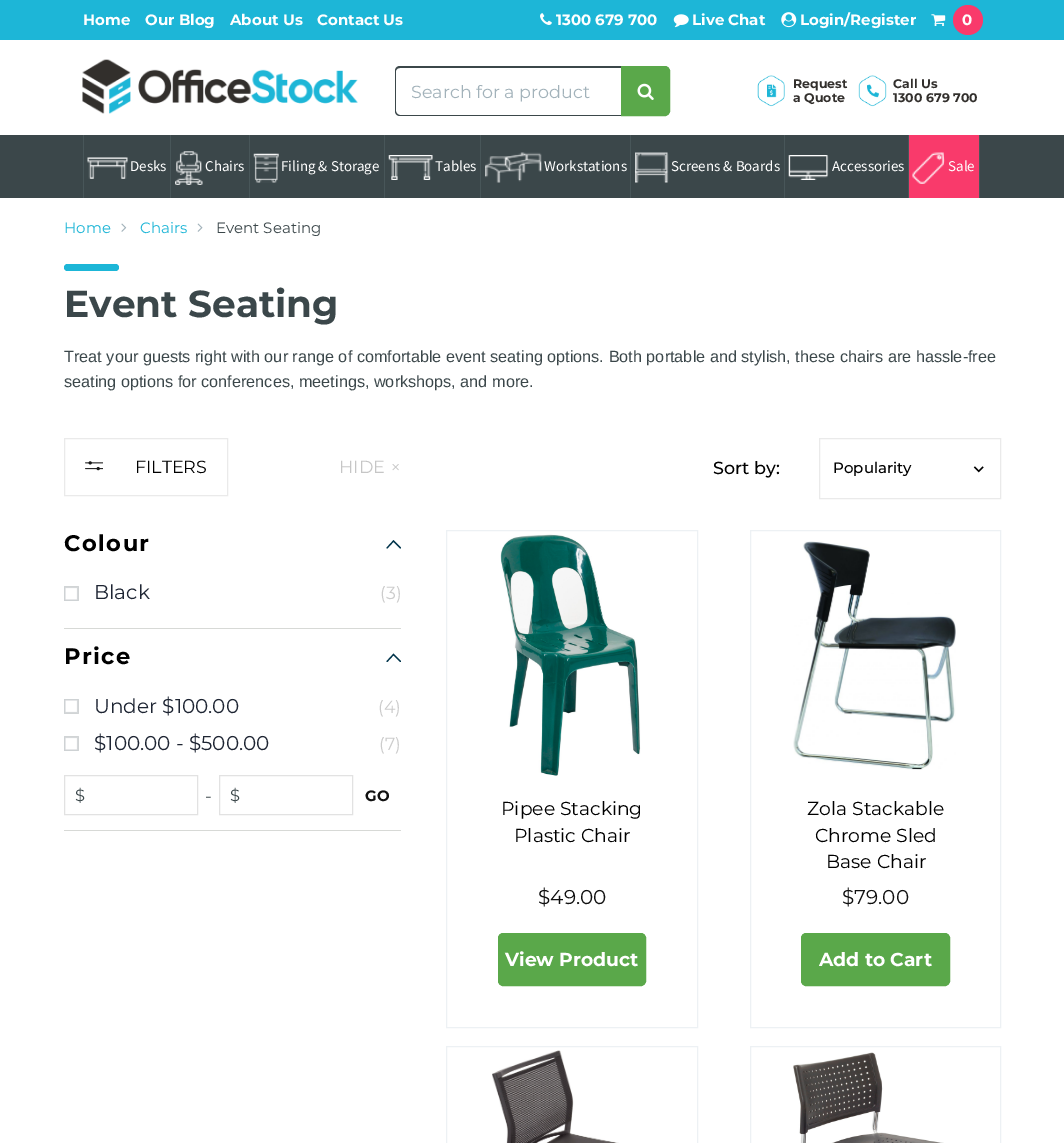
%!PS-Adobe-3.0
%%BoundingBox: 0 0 1064 1143
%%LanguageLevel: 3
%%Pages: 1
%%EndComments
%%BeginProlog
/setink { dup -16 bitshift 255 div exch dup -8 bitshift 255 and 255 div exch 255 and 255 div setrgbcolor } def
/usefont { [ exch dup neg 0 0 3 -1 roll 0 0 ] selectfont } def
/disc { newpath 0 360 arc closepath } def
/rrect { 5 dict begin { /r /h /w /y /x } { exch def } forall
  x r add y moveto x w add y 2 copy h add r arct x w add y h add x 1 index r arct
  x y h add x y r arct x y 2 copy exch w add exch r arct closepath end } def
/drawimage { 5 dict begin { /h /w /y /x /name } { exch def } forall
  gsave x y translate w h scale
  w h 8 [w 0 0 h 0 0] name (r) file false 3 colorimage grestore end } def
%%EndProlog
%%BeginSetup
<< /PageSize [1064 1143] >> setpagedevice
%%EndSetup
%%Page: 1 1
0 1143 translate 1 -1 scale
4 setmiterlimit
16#FFFFFF setink
0 0 1064 1143 rectfill
16#1DB6D7 setink
0 0 1064 40 rectfill
/Montserrat-Bold 15 usefont
16#FFFFFF setink
[
    [(Home) 83 25]
    [(Our Blog) 145 25]
    [(About Us) 230 25]
    [(Contact Us) 317 25]
] { aload pop moveto show } forall
(img1.raw) 540 13 12 12 drawimage
556 25 moveto (1300 679 700) show
(img2.raw) 673 14 16 14 drawimage
692 25 moveto (Live Chat) show
(img3.raw) 781 12 16 16 drawimage
800 25 moveto (Login/Register) show
(img4.raw) 931 14 15 13 drawimage
16#F93A6B setink
968 20 15 disc fill
16#FFFFFF setink
962 25 moveto (0) show
(img5.raw) 82 59 276 55 drawimage
16#3B474A setink
400 66 moveto 622 66 lineto 622 116 lineto 400 116 lineto 397 116 395 114 395 111 curveto 395 71 lineto 395 68 397 66 400 66 curveto closepath 400 68 moveto 622 68 lineto 622 115 lineto 400 115 lineto 398 115 396 113 396 111 curveto 396 71 lineto 396 69 398 68 400 68 curveto closepath eofill
/Montserrat-Regular 17.5 usefont
16#A2B2BA setink
411 98 moveto (Search for a product) show
16#5AA84A setink
621.5 66.5 moveto 665 66.5 lineto 667.5 66.5 669.5 68.5 669.5 71 curveto 669.5 111 lineto 669.5 113.5 667.5 115.5 665 115.5 curveto 621.5 115.5 lineto closepath gsave fill grestore
stroke
(img6.raw) 637 83 17 17 drawimage
(img7.raw) 757 75 28 32 drawimage
/Montserrat-Bold 12.5 usefont
16#322F2C setink
793 88 moveto (Request) show
793 102 moveto (a Quote) show
(img8.raw) 858 75 29 32 drawimage
893 88 moveto (Call Us) show
893 102 moveto (1300 679 700) show
[
    [0 135 1064 63 16#3B474A]
    [83 135 1 63 16#485659]
    [170 135 1 63 16#485659]
] { aload pop setink rectfill } forall
(img9.raw) 87 157 41 22 drawimage
/SourceSansPro-Regular 15 usefont
16#FFFFFF setink
130 171 moveto (Desks) show
16#485659 setink
249 135 1 63 rectfill
(img10.raw) 175 151 28 34 drawimage
16#FFFFFF setink
205 171 moveto (Chairs) show
16#485659 setink
384 135 1 63 rectfill
(img11.raw) 253 153 26 30 drawimage
16#FFFFFF setink
281 171 moveto (Filing & Storage) show
16#485659 setink
480 135 1 63 rectfill
(img12.raw) 388 155 45 25 drawimage
16#FFFFFF setink
435 171 moveto (Tables) show
16#485659 setink
630 135 1 63 rectfill
(img13.raw) 485 152 57 31 drawimage
16#FFFFFF setink
544 171 moveto (Workstations) show
16#485659 setink
784 135 1 63 rectfill
(img14.raw) 635 152 34 31 drawimage
16#FFFFFF setink
671 171 moveto (Screens & Boards) show
16#485659 setink
908 135 1 63 rectfill
(img15.raw) 788 155 41 25 drawimage
16#FFFFFF setink
832 171 moveto (Accessories) show
16#485659 setink
979 135 1 63 rectfill
16#F93A6B setink
909 135 70 63 rectfill
(img16.raw) 912 152 33 32 drawimage
16#FFFFFF setink
948 171 moveto (Sale) show
/Montserrat-Regular 15 usefont
16#1DB6D7 setink
64 233 moveto (Home) show
(img17.raw) 121 223 6 9 drawimage
140 233 moveto (Chairs) show
(img18.raw) 197 223 6 9 drawimage
16#3B474A setink
216 233 moveto (Event Seating) show
16#1DB6D7 setink
64 264 55 7 3.5 rrect fill
/Montserrat-Bold 37.5 usefont
16#3B474A setink
64 317 moveto (Event Seating) show
/LiberationSans-Regular 16.25 usefont
64 362 moveto (Treat your guests right with our range of comfortable event seating options. Both portable and stylish, these chairs are hassle-free) show
64 387 moveto (seating options for conferences, meetings, workshops, and more.) show
16#EAEAEA setink
64.5 438.5 163 57 rectstroke
(img19.raw) 85 461 18 10 drawimage
/Montserrat-Regular 17.5 usefont
16#000000 setink
135 473 moveto (FILTERS) show
16#C6C6C6 setink
339 473 moveto (HIDE) show
(img20.raw) 392 464 7 7 drawimage
16#D7D9D6 setink
64 628 337 1 rectfill
/Montserrat-Bold 22.5 usefont
16#000000 setink
64 551 moveto 1.5 0 (Colour) ashow
16#00334A setink
1.2 setlinewidth
1 setlinecap
400.5 548 moveto 393.5 541 lineto 387 548 lineto stroke
(img21.raw) 64 586 15 15 drawimage
/Montserrat-Regular 20 usefont
16#1E2533 setink
94 599 moveto (Black) show
/Montserrat-Regular 17.5 usefont
16#CCCCCC setink
380 599 moveto (\(3\)) show
16#D7D9D6 setink
64 830 337 1 rectfill
/Montserrat-Bold 22.5 usefont
16#000000 setink
64 664 moveto 1.5 0 (Price) ashow
16#00334A setink
400.5 661.5 moveto 393.5 654.5 lineto 387 661.5 lineto stroke
(img22.raw) 64 699 15 15 drawimage
/Montserrat-Regular 20 usefont
16#1E2533 setink
94 713 moveto (Under $100.00) show
/Montserrat-Regular 17.5 usefont
16#CCCCCC setink
378 713 moveto (\(4\)) show
(img21.raw) 64 736 15 15 drawimage
/Montserrat-Regular 20 usefont
16#1E2533 setink
94 750 moveto ($100.00 - $500.00) show
/Montserrat-Regular 17.5 usefont
16#CCCCCC setink
379 750 moveto (\(7\)) show
16#E2E2E2 setink
1 setlinewidth
0 setlinecap
64.5 775.5 133 39 rectstroke
/Montserrat-Regular 16.25 usefont
16#3B474A setink
75 801 moveto ($) show
/Montserrat-Regular 17.5 usefont
205 802 moveto (-) show
16#E2E2E2 setink
219.5 775.5 133 39 rectstroke
/Montserrat-Regular 16.25 usefont
16#3B474A setink
230 801 moveto ($) show
/Montserrat-Bold 15 usefont
16#111111 setink
365 801 moveto (GO) show
/Montserrat-Medium 17.5 usefont
16#000000 setink
713 474 moveto (Sort by:) show
16#EAEAEA setink
819.5 438.5 181 60 rectstroke
/Montserrat-Medium 15 usefont
16#000000 setink
833 473 moveto (Popularity) show
(img23.raw) 973 466 11 7 drawimage
16#EDF1F4 setink
446.5 530.5 251 497 rectstroke
(img24.raw) 500 534 141 242 drawimage
/Montserrat-Regular 18.75 usefont
16#000000 setink
501 815 moveto (Pipee Stacking) show
514 842 moveto (Plastic Chair) show
/Montserrat-Regular 20 usefont
16#111111 setink
538 904 moveto ($49.00) show
16#5AA84A setink
498.5 933.5 147 52 4.5 rrect gsave fill grestore
stroke
/Montserrat-Bold 18.75 usefont
16#FFFFFF setink
505 966 moveto (View Product) show
16#EDF1F4 setink
750.5 530.5 250 497 rectstroke
(img25.raw) 793 541 163 229 drawimage
/Montserrat-Regular 18.75 usefont
16#000000 setink
[
    [(Zola Stackable) 807 815]
    [(Chrome Sled) 815 842]
    [(Base Chair) 826 868]
] { aload pop moveto show } forall
/Montserrat-Regular 20 usefont
16#111111 setink
842 904 moveto ($79.00) show
16#5AA84A setink
801.5 933.5 148 52 4.5 rrect gsave fill grestore
stroke
/Montserrat-Bold 18.75 usefont
16#FFFFFF setink
819 966 moveto (Add to Cart) show
16#EDF1F4 setink
446.5 1046.5 251 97 rectstroke
(img26.raw) 492 1050 127 93 drawimage
750.5 1046.5 250 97 rectstroke
(img27.raw) 793 1052 151 91 drawimage
showpage
%%EOF
